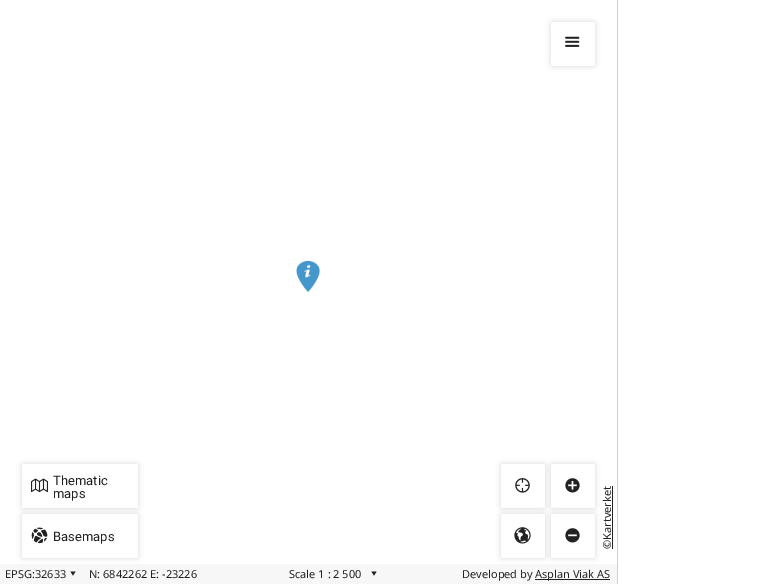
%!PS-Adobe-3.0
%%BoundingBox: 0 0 767 584
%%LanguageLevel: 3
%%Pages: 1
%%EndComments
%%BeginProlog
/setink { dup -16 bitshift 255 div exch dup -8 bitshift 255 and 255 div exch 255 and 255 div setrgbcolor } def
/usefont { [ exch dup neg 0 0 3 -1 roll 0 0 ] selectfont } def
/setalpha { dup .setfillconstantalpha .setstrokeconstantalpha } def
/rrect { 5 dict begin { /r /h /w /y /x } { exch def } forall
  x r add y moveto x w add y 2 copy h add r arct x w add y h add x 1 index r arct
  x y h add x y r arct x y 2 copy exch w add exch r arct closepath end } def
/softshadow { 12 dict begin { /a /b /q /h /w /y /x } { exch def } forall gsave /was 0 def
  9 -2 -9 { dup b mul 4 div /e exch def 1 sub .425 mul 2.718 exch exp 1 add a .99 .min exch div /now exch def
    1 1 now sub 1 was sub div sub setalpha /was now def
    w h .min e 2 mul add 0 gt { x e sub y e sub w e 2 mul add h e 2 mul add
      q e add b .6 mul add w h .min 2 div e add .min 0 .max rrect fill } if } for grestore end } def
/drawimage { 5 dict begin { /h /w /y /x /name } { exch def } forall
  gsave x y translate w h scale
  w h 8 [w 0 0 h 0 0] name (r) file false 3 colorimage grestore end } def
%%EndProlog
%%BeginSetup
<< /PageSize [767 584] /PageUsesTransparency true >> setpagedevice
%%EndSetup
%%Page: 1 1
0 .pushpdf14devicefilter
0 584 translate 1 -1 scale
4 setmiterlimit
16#FFFFFF setink
0 0 767 584 rectfill
16#000000 setink
551 22 44 44 2 3 0.15 softshadow
16#FFFFFF setink
551 22 44 44 2 rrect fill
(img1.raw) 565 36 15 11 drawimage
(img2.raw) 296 260 24 32 drawimage
16#000000 setink
22 464 116 44 2 3 0.15 softshadow
16#FFFFFF setink
22 464 116 44 2 rrect fill
(img3.raw) 31 478 17 15 drawimage
/Roboto-Regular 13 usefont
16#222222 setink
53 485 moveto (Thematic) show
53 498 moveto (maps) show
16#F7F7F7 setink
0 564 617 20 rectfill
16#000000 setink
22 514 116 44 2 3 0.15 softshadow
16#FFFFFF setink
22 514 116 44 2 rrect fill
(img4.raw) 31 527 17 17 drawimage
16#222222 setink
53 541 moveto (Basemaps) show
16#000000 setink
501 464 44 44 2 3 0.15 softshadow
16#FFFFFF setink
501 464 44 44 2 rrect fill
(img5.raw) 515 478 15 15 drawimage
16#000000 setink
551 464 44 44 2 3 0.15 softshadow
16#FFFFFF setink
551 464 44 44 2 rrect fill
(img6.raw) 565 478 15 15 drawimage
16#000000 setink
501 514 44 44 2 3 0.15 softshadow
16#FFFFFF setink
501 514 44 44 2 rrect fill
(img7.raw) 514 527 17 17 drawimage
16#000000 setink
551 514 44 44 2 3 0.15 softshadow
16#FFFFFF setink
551 514 44 44 2 rrect fill
(img8.raw) 565 528 15 15 drawimage
/NotoSans-Regular 11 usefont
16#222222 setink
gsave 611 549 translate -90 rotate 0 0 moveto (©Kartverket) show grestore
612 486 1 63 rectfill
5 578 moveto (EPSG:32633) show
75.5 571.5 moveto 70.5 571.5 lineto 73 575.5 lineto closepath fill
89 578 moveto (N: 6842262 E: -23226) show
289 578 moveto (Scale 1 : 2 500) show
376.5 571.5 moveto 371.5 571.5 lineto 374 575.5 lineto closepath fill
462 578 moveto (Developed by) show
535 579 75 1 rectfill
535 578 moveto (Asplan Viak AS) show
16#C2D8D7 setink
617 0 1 584 rectfill
.poppdf14devicefilter showpage
%%EOF
